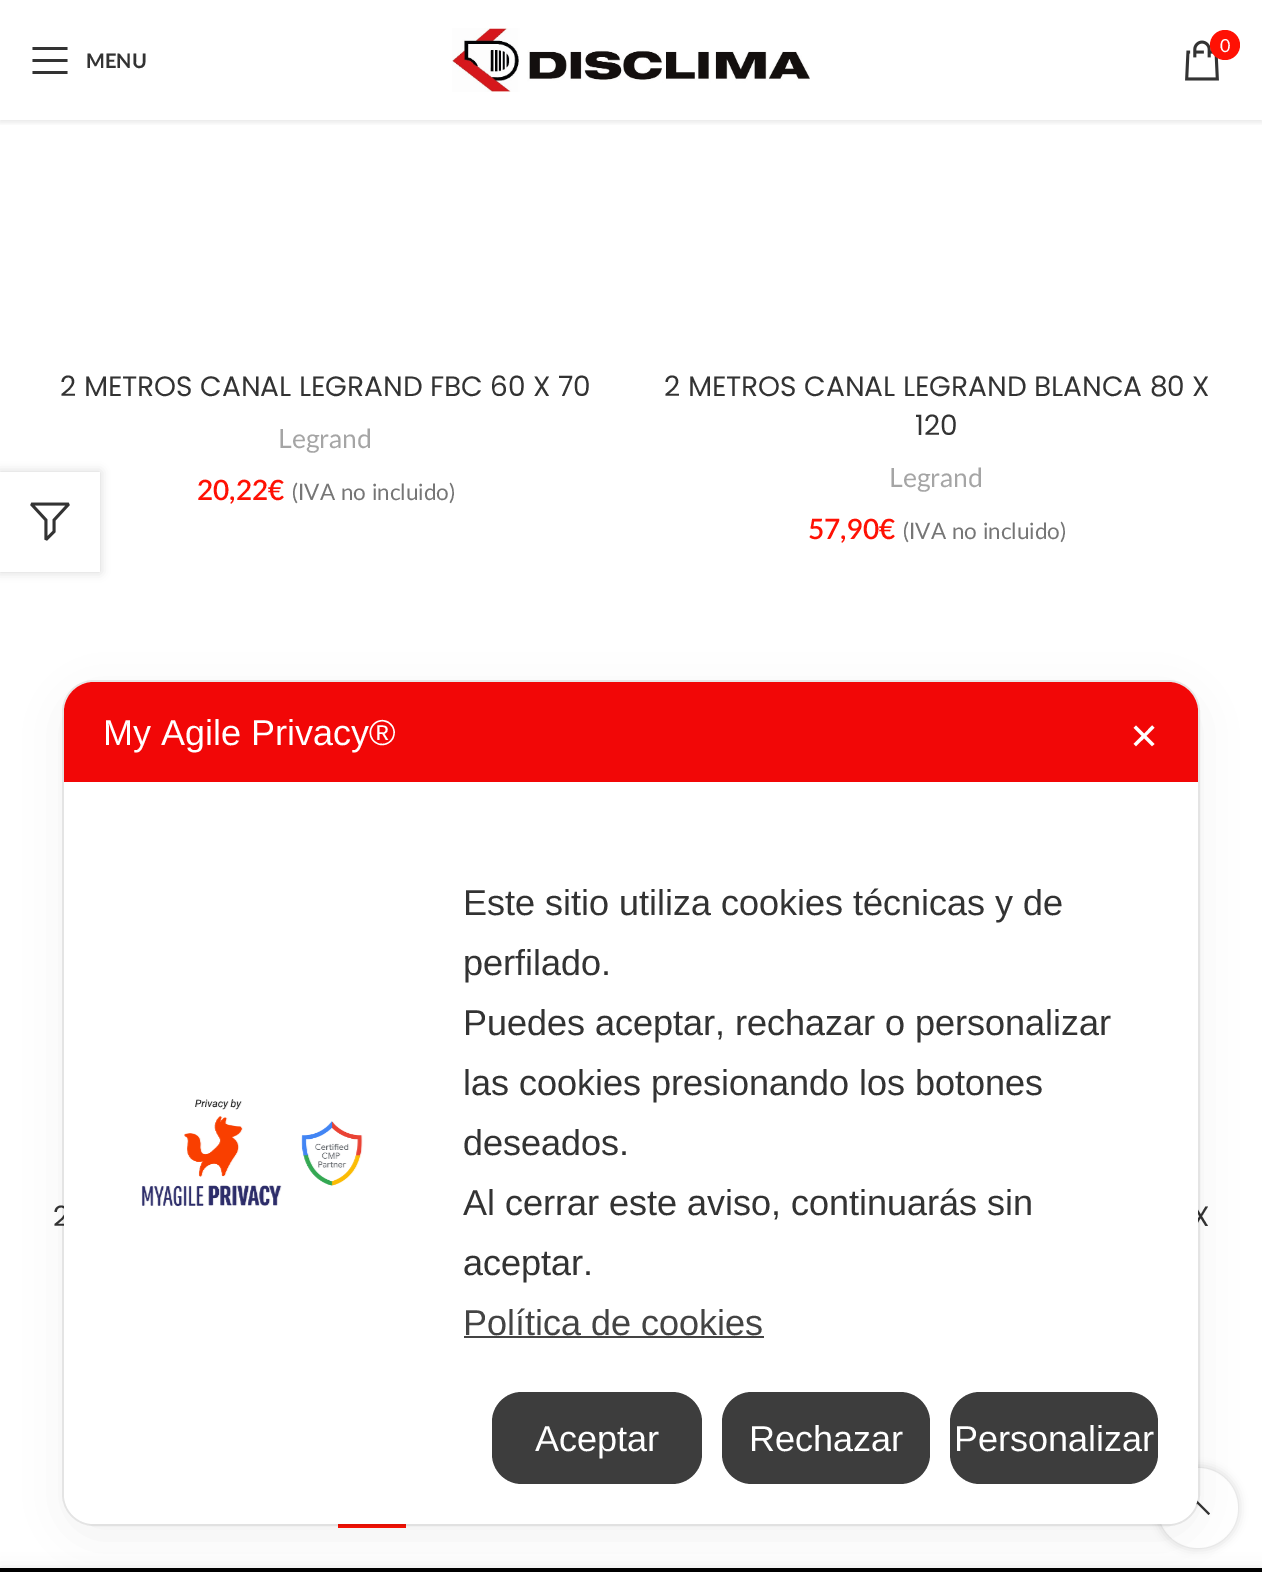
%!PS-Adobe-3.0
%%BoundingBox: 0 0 1262 1572
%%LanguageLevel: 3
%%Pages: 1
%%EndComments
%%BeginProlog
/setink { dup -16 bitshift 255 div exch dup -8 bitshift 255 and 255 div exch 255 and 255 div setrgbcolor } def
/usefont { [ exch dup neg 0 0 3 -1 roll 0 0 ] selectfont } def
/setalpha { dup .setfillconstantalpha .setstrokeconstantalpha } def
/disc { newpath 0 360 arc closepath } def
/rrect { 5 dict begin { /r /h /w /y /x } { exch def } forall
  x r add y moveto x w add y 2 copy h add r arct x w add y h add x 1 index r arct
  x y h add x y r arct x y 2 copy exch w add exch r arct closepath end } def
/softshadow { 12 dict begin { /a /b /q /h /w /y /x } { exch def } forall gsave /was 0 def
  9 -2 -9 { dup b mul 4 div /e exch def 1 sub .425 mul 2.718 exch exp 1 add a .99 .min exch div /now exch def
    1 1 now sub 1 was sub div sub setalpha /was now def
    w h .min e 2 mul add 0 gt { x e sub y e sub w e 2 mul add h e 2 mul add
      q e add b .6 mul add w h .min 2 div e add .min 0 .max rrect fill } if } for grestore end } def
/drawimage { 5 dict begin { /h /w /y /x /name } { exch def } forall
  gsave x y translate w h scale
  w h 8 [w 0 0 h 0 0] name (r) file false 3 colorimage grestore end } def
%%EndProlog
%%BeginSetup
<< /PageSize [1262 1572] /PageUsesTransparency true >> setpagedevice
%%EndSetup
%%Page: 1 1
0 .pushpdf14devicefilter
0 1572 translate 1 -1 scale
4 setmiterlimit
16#FFFFFF setink
0 0 1262 1572 rectfill
gsave
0 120 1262 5 rectclip
16#000000 setink
0 2 1262 120 0 3 0.1 softshadow
grestore
(img1.raw) 452 28 358 64 drawimage
(img2.raw) 1185 40 34 41 drawimage
16#FF1104 setink
1225 45 15 disc fill
/Lato-Regular 18 usefont
16#FFFFFF setink
1220 52 moveto (0) show
16#333333 setink
32.5 50 moveto 67.5 50 lineto 67.5 47 lineto 32.5 47 lineto closepath 32.5 62 moveto 67.5 62 lineto 67.5 59 lineto 32.5 59 lineto closepath 32.5 74 moveto 67.5 74 lineto 67.5 71 lineto 32.5 71 lineto closepath fill
/Lato-Bold 20 usefont
86 68 moveto (MENU) show
/Poppins-Regular 28 usefont
60 396 moveto (2 METROS CANAL LEGRAND FBC 60 X 70) show
/Lato-Regular 26.5 usefont
16#A5A5A5 setink
278 448 moveto (Legrand) show
/Lato-SemiBold 28 usefont
16#FF1104 setink
197 500 moveto (20,22€) show
/Lato-Regular 22.5 usefont
16#767676 setink
292 500 moveto (\(IVA no incluido\)) show
/Poppins-Regular 28 usefont
16#333333 setink
664 396 moveto (2 METROS CANAL LEGRAND BLANCA 80 X) show
915 435 moveto (120) show
/Lato-Regular 26.5 usefont
16#A5A5A5 setink
889 487 moveto (Legrand) show
/Lato-SemiBold 28 usefont
16#FF1104 setink
808 539 moveto (57,90€) show
/Lato-Regular 22.5 usefont
16#767676 setink
903 539 moveto (\(IVA no incluido\)) show
/Poppins-Regular 28 usefont
16#333333 setink
53 1226 moveto (2) show
1192 1226 moveto (X) show
16#FF1104 setink
338 1524 68 4 rectfill
16#000000 setink
0 1568 1262 4 rectfill
gsave
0 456 moveto 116 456 lineto 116 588 lineto 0 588 lineto closepath 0 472 moveto 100 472 lineto 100 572 lineto 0 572 lineto closepath eoclip newpath
0 472 100 100 0 5 0.17 softshadow
grestore
(img3.raw) 30 502 40 39 drawimage
gsave
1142 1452 moveto 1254 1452 lineto 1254 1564 lineto 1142 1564 lineto closepath 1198 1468 moveto 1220 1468 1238 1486 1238 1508 curveto 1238 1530 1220 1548 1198 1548 curveto 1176 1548 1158 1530 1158 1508 curveto 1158 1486 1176 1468 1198 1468 curveto closepath eoclip newpath
1158 1468 80 80 40 5 0.17 softshadow
grestore
0.9 setalpha
16#FFFFFF setink
1198 1508 40 disc fill
1 setalpha
16#333333 setink
1208.5 1515 moveto 1210 1513.5 lineto 1197 1500.5 lineto 1184 1513.5 lineto 1185.5 1515 lineto 1197 1503.5 lineto closepath fill
0.08 setalpha
16#000000 setink
2 setlinewidth
63 681 1136 844 31 rrect stroke
1 setalpha
64 694 1134 842 30 24 0.05 softshadow
16#FFFFFF setink
64 682 1134 842 30 rrect fill
16#F20707 setink
94 682 moveto 1168 682 lineto 1184.5 682 1198 695.5 1198 712 curveto 1198 782 lineto 64 782 lineto 64 712 lineto 64 695.5 77.5 682 94 682 curveto closepath fill
/LiberationSans-Regular 36 usefont
16#FFFFFF setink
103 745 moveto (My Agile Privacy®) show
/DejaVuSans-Regular 36 usefont
1129 749 moveto (✕) show
(img4.raw) 141 1099 222 108 drawimage
/LiberationSans-Regular 36 usefont
16#333333 setink
[
    [(Este sitio utiliza cookies técnicas y de) 463 915]
    [(perfilado.) 463 975]
    [(Puedes aceptar, rechazar o personalizar) 463 1035]
    [(las cookies presionando los botones) 463 1095]
    [(deseados.) 463 1155]
    [(Al cerrar este aviso, continuarás sin) 463 1215]
    [(aceptar.) 463 1275]
] { aload pop moveto show } forall
16#444444 setink
463 1335 moveto (Política de cookies) show
464 1336 300 2 rectfill
16#3D3D3D setink
492 1392 210 92 30 rrect fill
16#FFFFFF setink
535 1451 moveto (Aceptar) show
16#3D3D3D setink
722 1392 208 92 30 rrect fill
16#FFFFFF setink
749 1451 moveto (Rechazar) show
16#3D3D3D setink
950 1392 208 92 30 rrect fill
16#FFFFFF setink
954 1451 moveto (Personalizar) show
16#000000 setink
0 1572 1262 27 0 9 0.14 softshadow
.poppdf14devicefilter showpage
%%EOF
